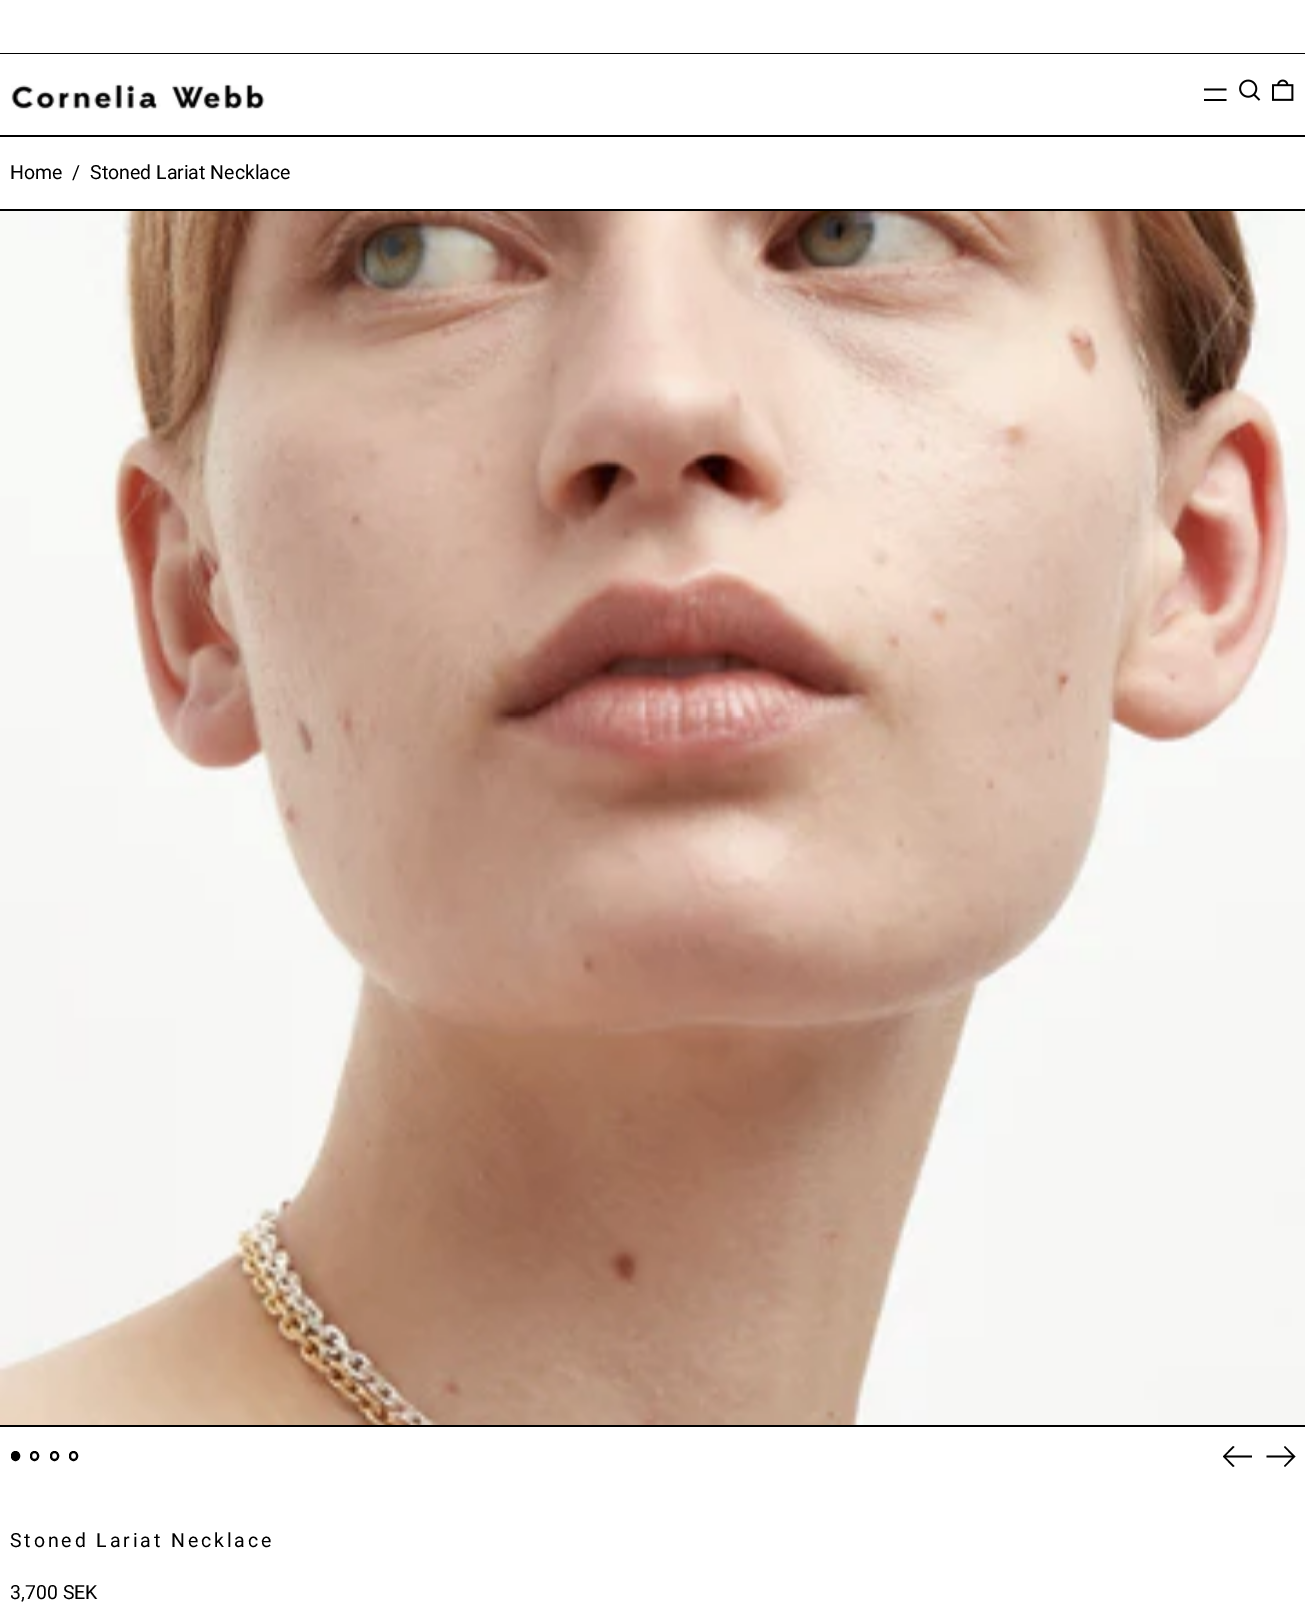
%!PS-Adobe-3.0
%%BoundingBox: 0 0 1305 1602
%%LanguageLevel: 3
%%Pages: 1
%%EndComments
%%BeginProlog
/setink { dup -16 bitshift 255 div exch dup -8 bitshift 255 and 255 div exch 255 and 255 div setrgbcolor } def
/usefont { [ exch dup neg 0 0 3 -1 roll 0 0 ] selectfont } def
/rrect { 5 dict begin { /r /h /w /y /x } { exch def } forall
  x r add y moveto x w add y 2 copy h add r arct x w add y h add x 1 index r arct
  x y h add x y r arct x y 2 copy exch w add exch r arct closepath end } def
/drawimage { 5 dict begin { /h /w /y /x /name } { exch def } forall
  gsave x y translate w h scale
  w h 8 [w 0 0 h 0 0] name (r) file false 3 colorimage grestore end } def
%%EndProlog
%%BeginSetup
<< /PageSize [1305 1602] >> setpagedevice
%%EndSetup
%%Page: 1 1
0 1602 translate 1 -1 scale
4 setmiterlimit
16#FFFFFF setink
0 0 1305 1602 rectfill
16#000000 setink
0 53 1305 1 rectfill
0 135 1305 2 rectfill
(img1.raw) 11 83 254 27 drawimage
1226.5 99 moveto 1226.5 101 lineto 1204 101 lineto 1204 99 lineto closepath 1226.5 88.5 moveto 1226.5 90.5 lineto 1204 90.5 lineto 1204 88.5 lineto closepath eofill
(img2.raw) 1239 79 22 22 drawimage
(img3.raw) 1272 79 22 22 drawimage
0 209 1305 2 rectfill
/Roboto-Regular 19.5 usefont
[
    [(Home) 10 179]
    [(/) 72 179]
    [(Stoned Lariat Necklace) 90 179]
] { aload pop moveto show } forall
0 1425 1305 2 rectfill
(img4.raw) 0 211 1305 1214 drawimage
12 1452 7 8 3.5 rrect gsave fill grestore
2 setlinewidth
stroke
31 1452 7 8 3.5 rrect stroke
51 1452 7 8 3.5 rrect stroke
70 1452 7 8 3.5 rrect stroke
1233 1446 moveto 1223 1456.5 lineto 1233 1467 lineto 1234.5 1466 lineto 1226 1457.5 lineto 1252 1457.5 lineto 1252 1455.5 lineto 1226 1455.5 lineto 1234.5 1447 lineto closepath fill
1285 1446 moveto 1295.5 1456.5 lineto 1285 1467 lineto 1284 1466 lineto 1292 1457.5 lineto 1266.5 1457.5 lineto 1266.5 1455.5 lineto 1292 1455.5 lineto 1284 1447 lineto closepath fill
10 1547 moveto 2.9 0 (Stoned Lariat Necklace) ashow
10 1599 moveto (3,700 SEK) show
showpage
%%EOF
